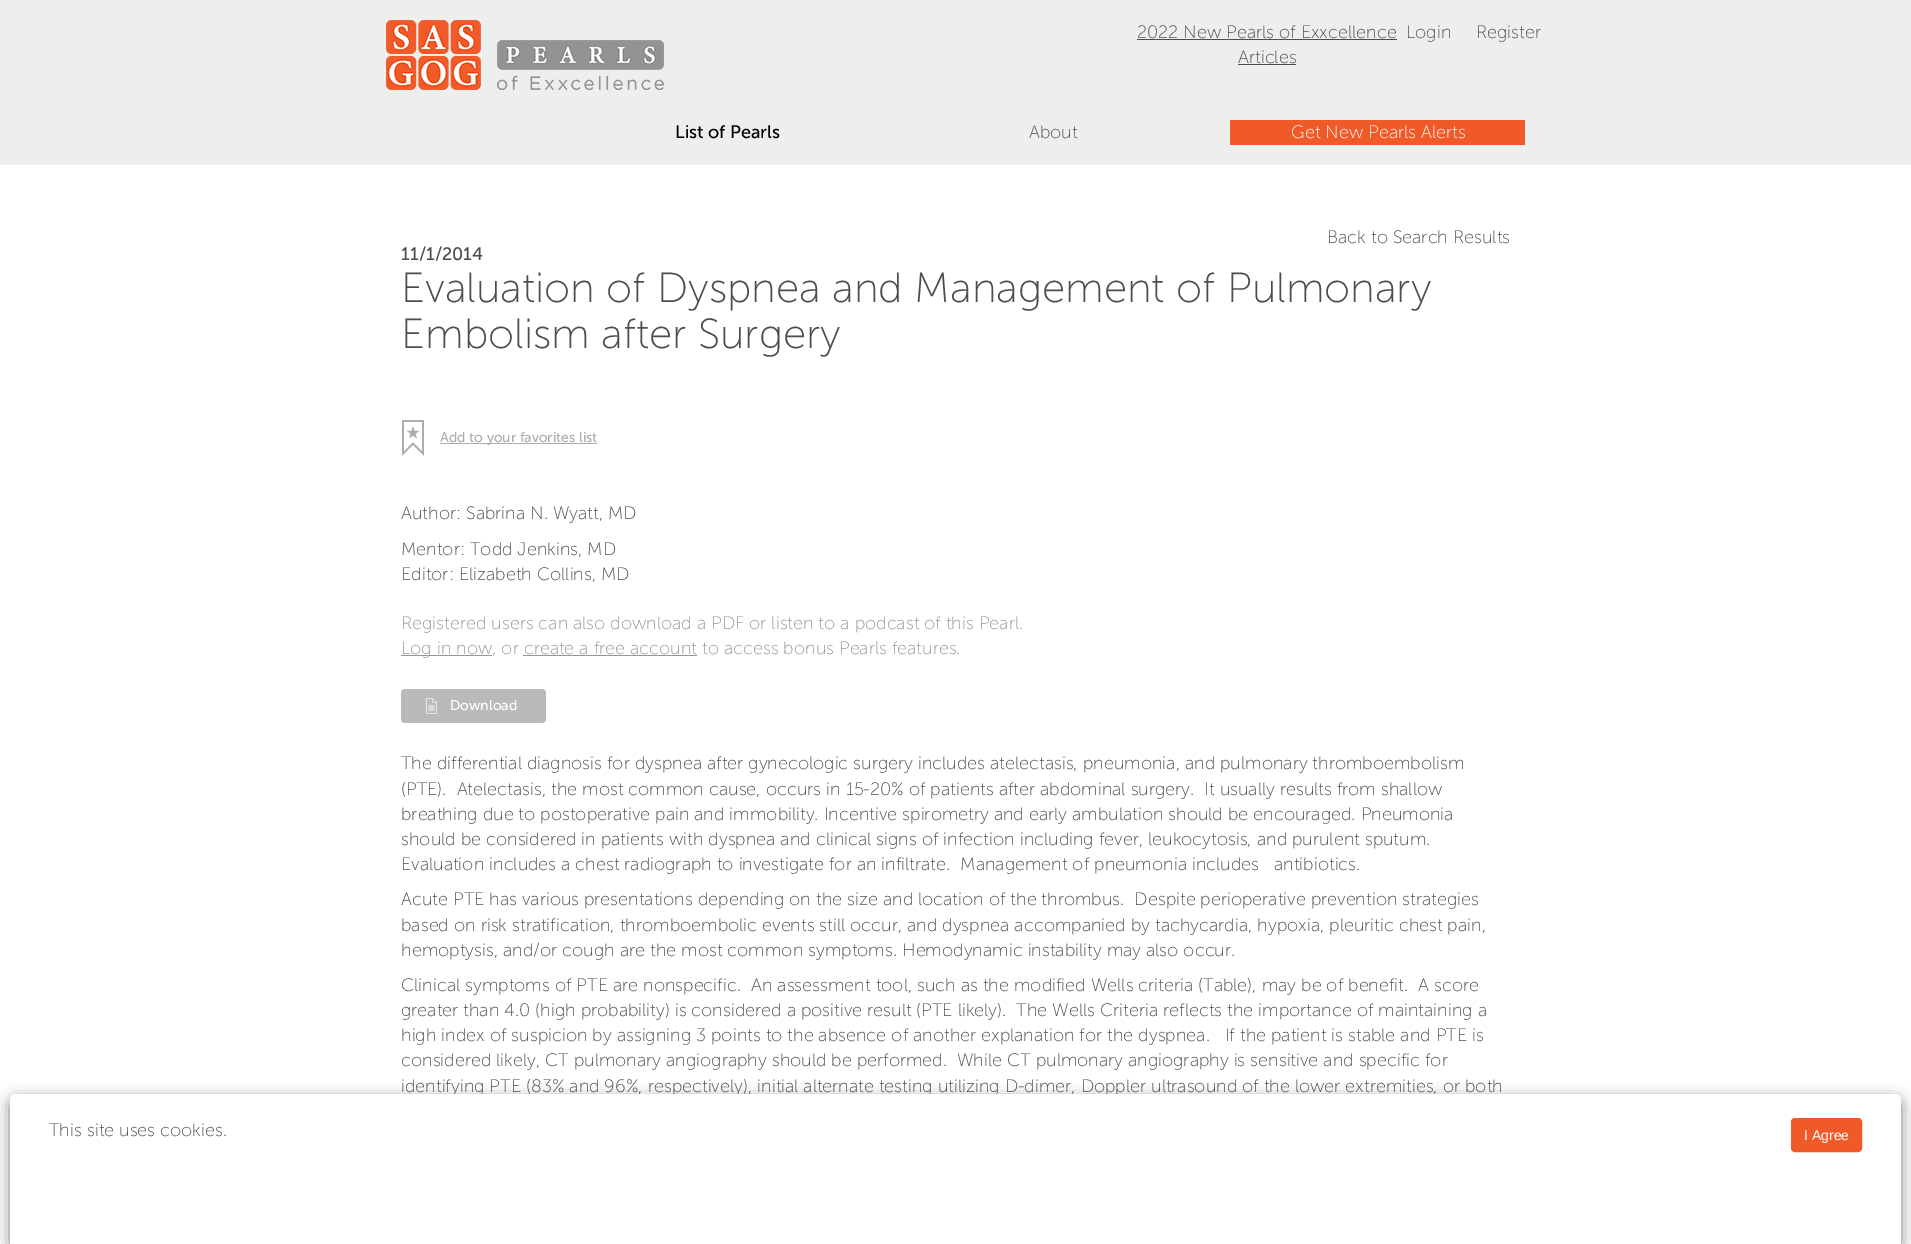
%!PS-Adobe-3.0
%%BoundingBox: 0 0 1911 1244
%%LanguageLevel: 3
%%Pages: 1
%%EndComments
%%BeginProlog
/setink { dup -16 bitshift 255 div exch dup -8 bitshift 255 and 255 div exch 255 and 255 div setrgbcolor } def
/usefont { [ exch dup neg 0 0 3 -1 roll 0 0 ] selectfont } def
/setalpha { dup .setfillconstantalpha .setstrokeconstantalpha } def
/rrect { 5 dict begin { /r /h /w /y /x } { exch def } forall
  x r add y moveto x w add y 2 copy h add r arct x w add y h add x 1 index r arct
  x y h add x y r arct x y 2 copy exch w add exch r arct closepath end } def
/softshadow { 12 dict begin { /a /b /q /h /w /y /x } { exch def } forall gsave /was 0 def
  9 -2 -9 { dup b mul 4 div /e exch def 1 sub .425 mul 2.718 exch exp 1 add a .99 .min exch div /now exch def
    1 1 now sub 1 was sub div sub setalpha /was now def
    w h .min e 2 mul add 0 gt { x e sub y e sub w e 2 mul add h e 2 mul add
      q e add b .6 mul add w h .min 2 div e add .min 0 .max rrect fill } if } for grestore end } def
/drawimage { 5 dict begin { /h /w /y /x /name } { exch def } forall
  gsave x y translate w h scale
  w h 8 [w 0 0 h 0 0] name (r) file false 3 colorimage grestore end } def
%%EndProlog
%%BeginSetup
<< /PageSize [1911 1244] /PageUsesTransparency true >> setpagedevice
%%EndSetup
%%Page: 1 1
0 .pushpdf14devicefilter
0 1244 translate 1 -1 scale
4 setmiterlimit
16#ECEFED setink
0 0 1911 1244 rectfill
(img1.raw) 386 20 278 70 drawimage
/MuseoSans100-Light 18 usefont
16#4D4D4D setink
1137 38 moveto (2022 New Pearls of Exxcellence) show
1137 39 260 1 rectfill
1238 63 moveto (Articles) show
1238 64 58 1 rectfill
1406 38 moveto (Login) show
1476 38 moveto (Register) show
/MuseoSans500-Regular 18 usefont
16#000000 setink
675 138 moveto (List of Pearls) show
/MuseoSans100-Light 18 usefont
16#4D4D4D setink
1029 138 moveto (About) show
16#F05A28 setink
1230 120 295 25 rectfill
16#FFFFFF setink
1291 138 moveto (Get New Pearls Alerts) show
0 165 1911 1079 rectfill
16#4D4D4D setink
1327 243 moveto (Back to Search Results) show
/MuseoSans500-Regular 18 usefont
401 260 moveto (11/1/2014) show
/MuseoSans100-Light 42 usefont
401 302 moveto (Evaluation of Dyspnea and Management of Pulmonary) show
401 348 moveto (Embolism after Surgery) show
(img2.raw) 402 420 22 36 drawimage
16#AEAEAE setink
440 443 157 1 rectfill
/MuseoSans500-Regular 14 usefont
440 442 moveto (Add to your favorites list) show
/MuseoSans100-Light 18 usefont
16#4D4D4D setink
[
    [(Author: Sabrina N. Wyatt, MD) 401 519]
    [(Mentor: Todd Jenkins, MD) 401 555]
    [(Editor: Elizabeth Collins, MD) 401 580]
] { aload pop moveto show } forall
16#959595 setink
401 629 moveto (Registered users can also download a PDF or listen to a podcast of this Pearl.) show
401 655 91 1 rectfill
401 654 moveto (Log in now, or create a free account to access bonus Pearls features.) show
523 655 174 1 rectfill
16#BABABA setink
401 689 145 34 4 rrect fill
(img3.raw) 426 698 11 16 drawimage
/MuseoSans500-Regular 14 usefont
16#FFFFFF setink
450 710 moveto (Download) show
/MuseoSans100-Light 18 usefont
16#4D4D4D setink
[
    [(The differential diagnosis for dyspnea after gynecologic surgery includes atelectasis, pneumonia, and pulmonary thromboembolism) 401 769]
    [(\(PTE\).  Atelectasis, the most common cause, occurs in 15-20% of patients after abdominal surgery.  It usually results from shallow) 401 795]
    [(breathing due to postoperative pain and immobility. Incentive spirometry and early ambulation should be encouraged. Pneumonia) 401 820]
    [(should be considered in patients with dyspnea and clinical signs of infection including fever, leukocytosis, and purulent sputum.) 401 845]
    [(Evaluation includes a chest radiograph to investigate for an infiltrate.  Management of pneumonia includes   antibiotics.) 401 870]
    [(Acute PTE has various presentations depending on the size and location of the thrombus.  Despite perioperative prevention strategies) 401 905]
    [(based on risk stratification, thromboembolic events still occur, and dyspnea accompanied by tachycardia, hypoxia, pleuritic chest pain,) 401 931]
    [(hemoptysis, and/or cough are the most common symptoms. Hemodynamic instability may also occur.) 401 956]
    [(Clinical symptoms of PTE are nonspecific.  An assessment tool, such as the modified Wells criteria \(Table\), may be of benefit.  A score) 401 991]
    [(greater than 4.0 \(high probability\) is considered a positive result \(PTE likely\).  The Wells Criteria reflects the importance of maintaining a) 401 1016]
    [(high index of suspicion by assigning 3 points to the absence of another explanation for the dyspnea.   If the patient is stable and PTE is) 401 1041]
    [(considered likely, CT pulmonary angiography should be performed.  While CT pulmonary angiography is sensitive and specific for) 401 1066]
    [(identifying PTE \(83% and 96%, respectively\), initial alternate testing utilizing D-dimer, Doppler ultrasound of the lower extremities, or both) 401 1092]
] { aload pop moveto show } forall
16#000000 setink
10 1099 1891 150 6 7.5 0.5 softshadow
16#FFFFFF setink
16 1094 moveto 1895 1094 lineto 1898.5 1094 1901 1096.5 1901 1100 curveto 1901 1244 lineto 10 1244 lineto 10 1100 lineto 10 1096.5 12.5 1094 16 1094 curveto closepath fill
16#4D4D4D setink
49 1136 moveto (This site uses cookies.) show
16#F05A28 setink
1791.5 1118.5 70 33 3.5 rrect gsave fill grestore
stroke
/LiberationSans-Regular 14 usefont
16#FFFFFF setink
1804 1140 moveto (I Agree) show
.poppdf14devicefilter showpage
%%EOF
